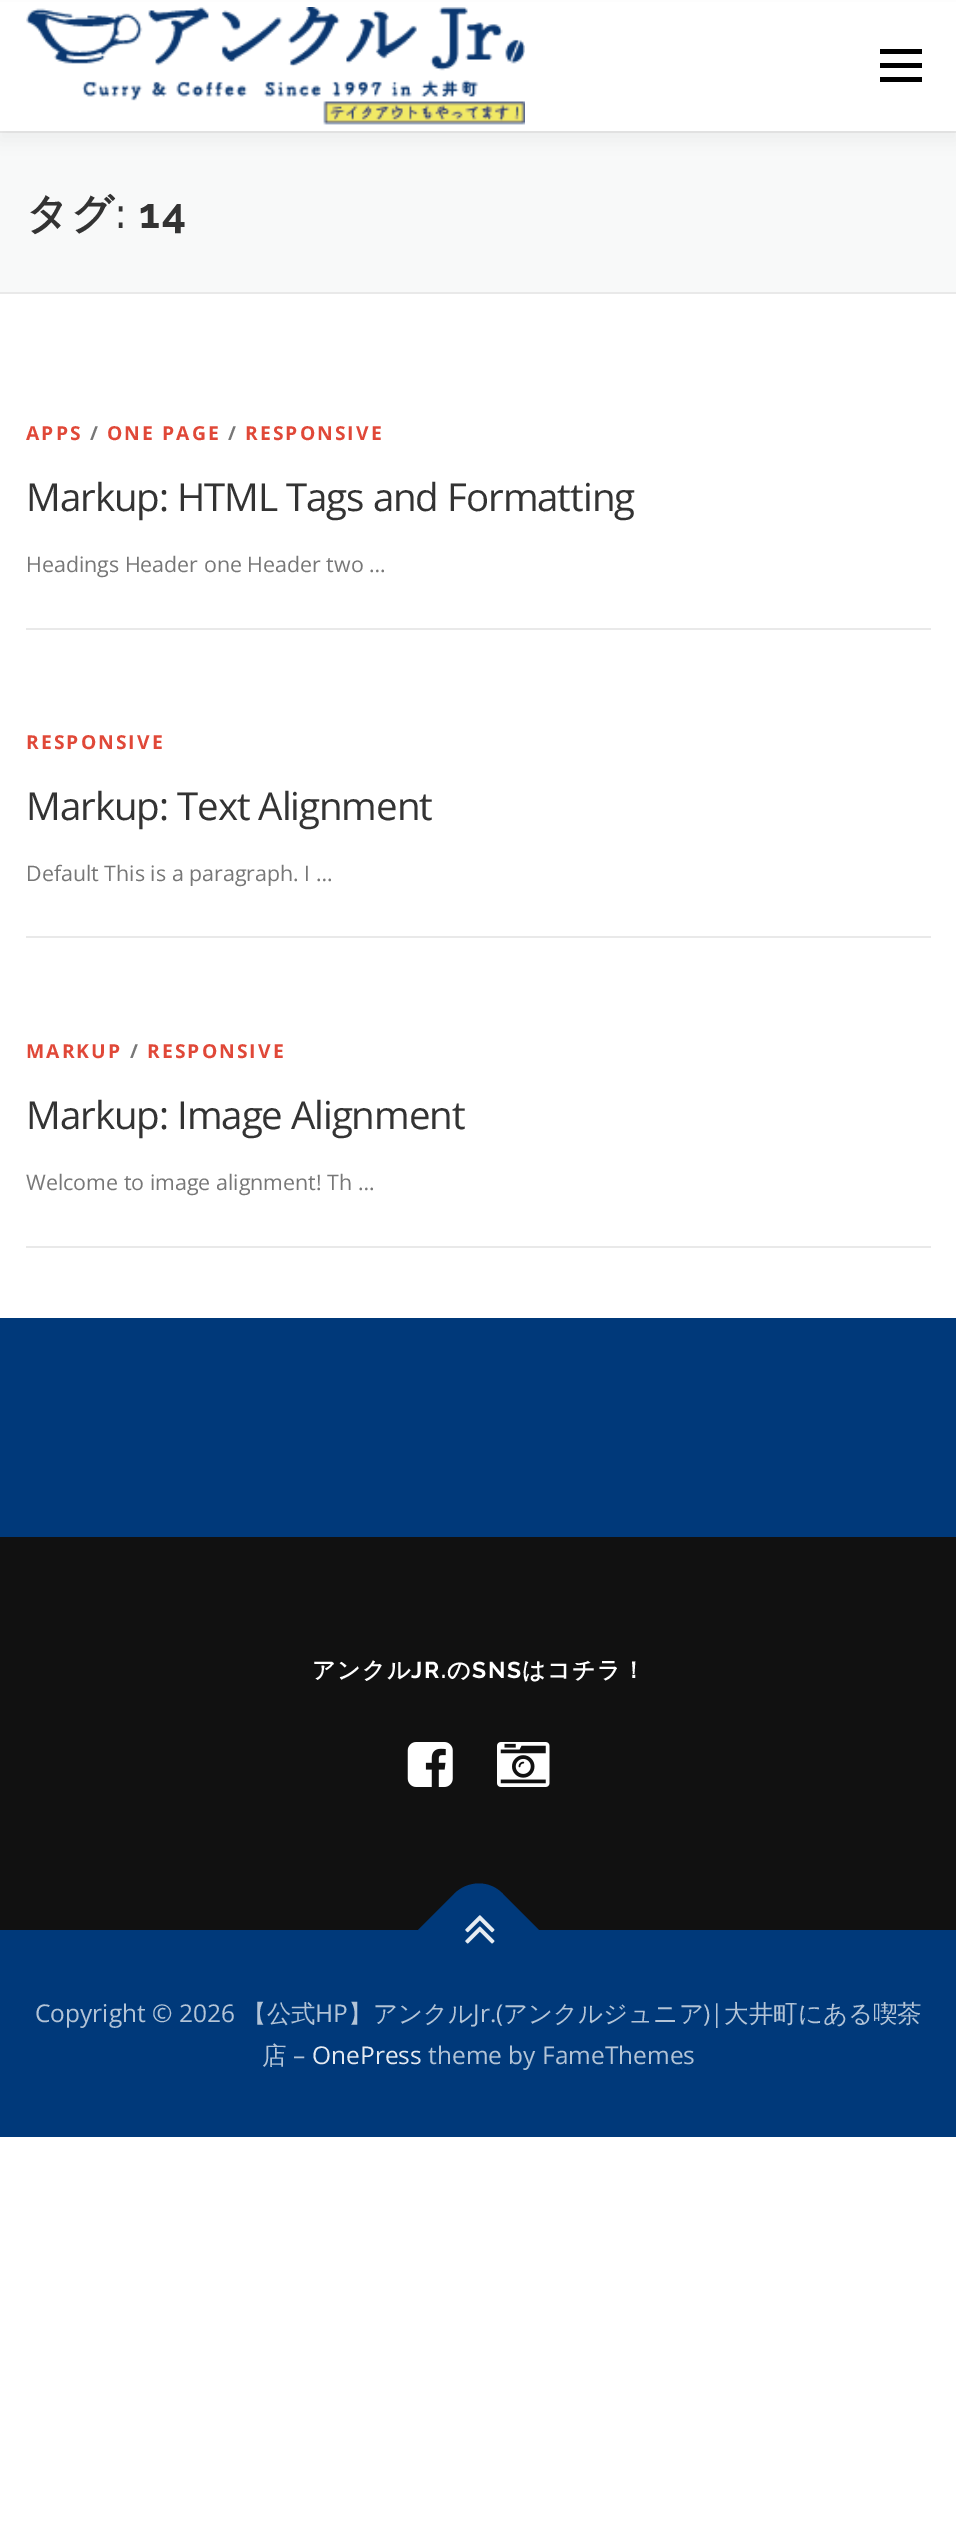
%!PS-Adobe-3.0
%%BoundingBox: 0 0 956 2524
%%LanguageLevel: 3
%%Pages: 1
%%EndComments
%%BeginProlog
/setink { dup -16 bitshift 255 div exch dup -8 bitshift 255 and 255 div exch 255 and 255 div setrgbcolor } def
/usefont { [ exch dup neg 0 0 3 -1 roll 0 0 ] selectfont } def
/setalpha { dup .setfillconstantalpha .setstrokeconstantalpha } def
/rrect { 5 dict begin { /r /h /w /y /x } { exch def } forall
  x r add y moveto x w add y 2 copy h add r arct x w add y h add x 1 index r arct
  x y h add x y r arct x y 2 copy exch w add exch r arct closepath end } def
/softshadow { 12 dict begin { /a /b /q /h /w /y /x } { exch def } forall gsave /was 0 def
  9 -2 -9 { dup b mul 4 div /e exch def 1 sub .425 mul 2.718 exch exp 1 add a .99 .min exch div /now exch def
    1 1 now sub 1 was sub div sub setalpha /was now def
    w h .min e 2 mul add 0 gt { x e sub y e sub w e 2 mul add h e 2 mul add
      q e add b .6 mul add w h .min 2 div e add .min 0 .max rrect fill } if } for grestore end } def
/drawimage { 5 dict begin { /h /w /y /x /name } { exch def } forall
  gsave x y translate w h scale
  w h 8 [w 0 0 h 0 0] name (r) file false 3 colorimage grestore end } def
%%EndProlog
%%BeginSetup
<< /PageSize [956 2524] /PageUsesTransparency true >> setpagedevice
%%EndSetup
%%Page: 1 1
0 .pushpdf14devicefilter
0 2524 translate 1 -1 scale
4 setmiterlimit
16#FFFFFF setink
0 0 956 2524 rectfill
16#F8F9F9 setink
0 133 956 159 rectfill
16#E9E9E9 setink
0 131 956 2 rectfill
16#323232 setink
0 9 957 131 0 9 0.06 softshadow
16#FFFFFF setink
0 2 956 129 rectfill
(img1.raw) 26 7 499 118 drawimage
[
    [880 63 42 5 16#000000]
    [880 49 42 5 16#000000]
    [880 77 42 5 16#000000]
    [0 292 956 2 16#E9E9E9]
] { aload pop setink rectfill } forall
/WenQuanYiZenHei-Bold 42 usefont
16#333333 setink
26 228 moveto 2 0 (タグ) ashow
/Raleway-SemiBold 42 usefont
116 228 moveto 2 0 (:) ashow
/Raleway-Bold 42 usefont
139 228 moveto 2 0 (14) ashow
/OpenSans-Bold 19.25 usefont
16#E04838 setink
26 440 moveto 2.1 0 (APPS) ashow
16#777777 setink
90 440 moveto 2.1 0 (/) ashow
16#E04838 setink
107 440 moveto 2.1 0 (ONE PAGE) ashow
16#777777 setink
228 440 moveto 2.1 0 (/) ashow
16#E04838 setink
245 440 moveto 2.1 0 (RESPONSIVE) ashow
/OpenSans-Regular 38.5 usefont
16#333333 setink
26 511 moveto -1.05 0 (Markup: HTML Tags and Formatting) ashow
/OpenSans-Regular 21.4 usefont
16#777777 setink
26 572 moveto (Headings Header one Header two …) show
16#E9E9E9 setink
26 628 905 2 rectfill
/OpenSans-Bold 19.25 usefont
16#E04838 setink
26 749 moveto 2.1 0 (RESPONSIVE) ashow
/OpenSans-Regular 38.5 usefont
16#333333 setink
26 820 moveto -1.05 0 (Markup: Text Alignment) ashow
/OpenSans-Regular 21.4 usefont
16#777777 setink
26 881 moveto (Default This is a paragraph. I …) show
16#E9E9E9 setink
26 936 905 2 rectfill
26 1246 905 2 rectfill
/OpenSans-Bold 19.25 usefont
16#E04838 setink
26 1058 moveto 2.1 0 (MARKUP) ashow
16#777777 setink
130 1058 moveto 2.1 0 (/) ashow
16#E04838 setink
147 1058 moveto 2.1 0 (RESPONSIVE) ashow
/OpenSans-Regular 38.5 usefont
16#333333 setink
26 1129 moveto -1.05 0 (Markup: Image Alignment) ashow
/OpenSans-Regular 21.4 usefont
16#777777 setink
26 1190 moveto (Welcome to image alignment! Th …) show
16#111111 setink
0 1537 956 393 rectfill
16#00397A setink
0 1318 956 219 rectfill
/WenQuanYiZenHei-Bold 23 usefont
16#FFFFFF setink
312 1678 moveto 1.5 0 (アンクル) ashow
/Raleway-Bold 23 usefont
411 1678 moveto 1.5 0 (JR.) ashow
/WenQuanYiZenHei-Bold 23 usefont
447 1678 moveto 1.5 0 (の) ashow
/Raleway-Bold 23 usefont
472 1678 moveto 1.5 0 (SNS) ashow
/WenQuanYiZenHei-Bold 23 usefont
522 1678 moveto 1.5 0 (はコチラ！) ashow
(img2.raw) 407 1742 46 45 drawimage
(img3.raw) 497 1742 53 45 drawimage
16#00397A setink
0 1930 956 207 rectfill
417 1931 moveto 454 1894 lineto 468 1880 490 1880 503 1894 curveto 540 1931 lineto 479 1993 lineto closepath fill
(img4.raw) 465 1915 30 29 drawimage
/OpenSans-Regular 24.5 usefont
16#B3C4D7 setink
35 2022 moveto (Copyright © 2026) show
/WenQuanYiZenHei-Medium 24.5 usefont
242 2022 moveto (【公式) show
/OpenSans-Regular 24.5 usefont
315 2022 moveto (HP) show
/WenQuanYiZenHei-Medium 24.5 usefont
348 2022 moveto (】アンクル) show
/OpenSans-Regular 24.5 usefont
473 2022 moveto (Jr.\() show
/WenQuanYiZenHei-Medium 24.5 usefont
503 2022 moveto (アンクルジュニア) show
/OpenSans-Regular 24.5 usefont
703 2022 moveto (\)|) show
/WenQuanYiZenHei-Medium 24.5 usefont
724 2022 moveto (大井町にある喫茶) show
262 2064 moveto (店) show
/OpenSans-Regular 24.5 usefont
293 2064 moveto (–) show
16#E6EBF2 setink
312 2064 moveto (OnePress) show
16#B3C4D7 setink
428 2064 moveto (theme by FameThemes) show
.poppdf14devicefilter showpage
%%EOF
